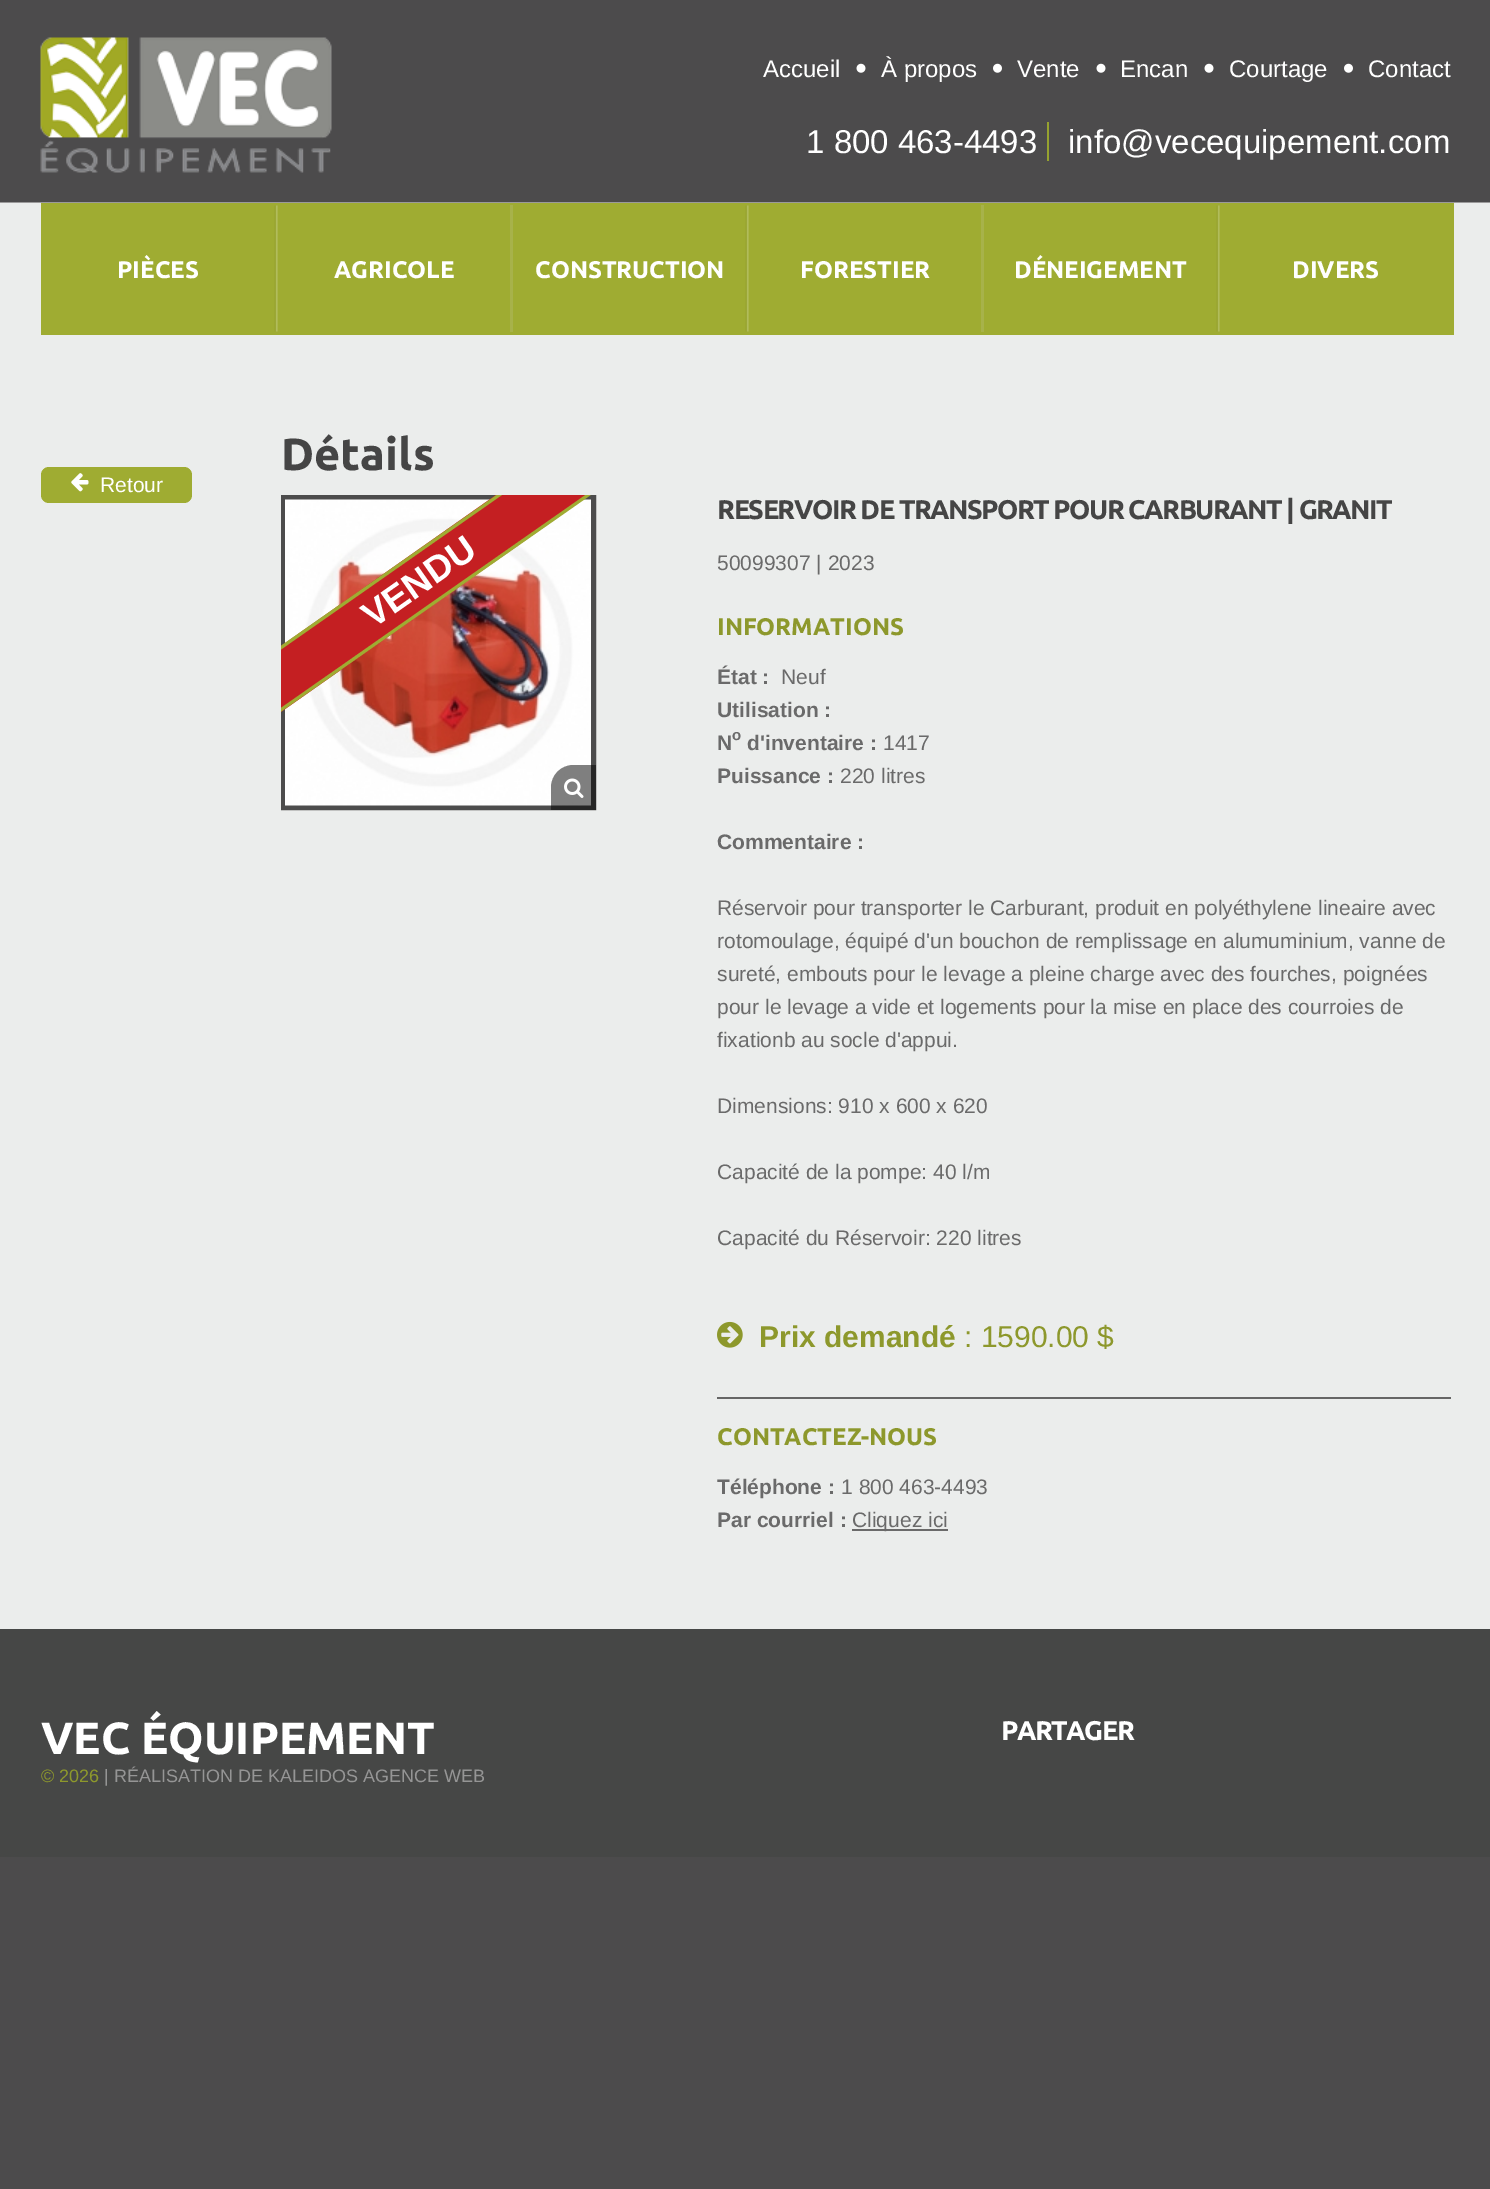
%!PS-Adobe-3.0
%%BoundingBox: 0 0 1490 2189
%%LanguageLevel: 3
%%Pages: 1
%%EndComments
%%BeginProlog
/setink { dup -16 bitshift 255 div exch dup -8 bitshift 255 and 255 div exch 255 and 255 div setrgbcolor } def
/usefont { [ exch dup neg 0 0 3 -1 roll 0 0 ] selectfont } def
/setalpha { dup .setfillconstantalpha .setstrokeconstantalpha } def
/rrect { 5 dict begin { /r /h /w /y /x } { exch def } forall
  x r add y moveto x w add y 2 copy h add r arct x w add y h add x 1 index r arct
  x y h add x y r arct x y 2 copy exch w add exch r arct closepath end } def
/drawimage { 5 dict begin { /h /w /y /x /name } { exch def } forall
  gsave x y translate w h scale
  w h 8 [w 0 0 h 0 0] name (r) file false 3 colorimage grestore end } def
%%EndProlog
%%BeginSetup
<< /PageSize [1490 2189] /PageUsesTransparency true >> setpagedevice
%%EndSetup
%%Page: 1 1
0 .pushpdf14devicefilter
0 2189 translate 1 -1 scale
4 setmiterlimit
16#4C4B4C setink
0 0 1490 2189 rectfill
(img1.raw) 40 37 292 136 drawimage
/LiberationSans-Regular 24 usefont
16#FFFFFF setink
763 77 moveto (Accueil) show
(img2.raw) 856 63 10 10 drawimage
881 77 moveto (À propos) show
(img3.raw) 993 63 9 10 drawimage
1017 77 moveto (Vente) show
(img2.raw) 1096 63 10 10 drawimage
1120 77 moveto (Encan) show
(img2.raw) 1204 63 10 10 drawimage
1229 77 moveto (Courtage) show
(img3.raw) 1344 63 9 10 drawimage
1368 77 moveto (Contact) show
/LiberationSans-Regular 33 usefont
806 153 moveto (1 800 463-4493) show
16#96A22F setink
1047 122 2 39 rectfill
16#FFFFFF setink
1068 153 moveto (info@vecequipement.com) show
16#EBEDEC setink
0 203 1490 1426 rectfill
16#9FAC32 setink
41 203 1413 132 rectfill
/Ubuntu-Bold 24 usefont
16#FFFFFF setink
117 278 moveto (PIÈCES) show
(img4.raw) 274 205 4 127 drawimage
334 278 moveto (AGRICOLE) show
16#A7B24A setink
510 205 3 127 rectfill
16#FFFFFF setink
535 278 moveto (CONSTRUCTION) show
(img4.raw) 745 205 4 127 drawimage
800 278 moveto (FORESTIER) show
16#A7B24A setink
981 205 3 127 rectfill
16#FFFFFF setink
1014 278 moveto (DÉNEIGEMENT) show
(img4.raw) 1216 205 4 127 drawimage
1292 278 moveto (DIVERS) show
16#9B9A9B setink
0 202 1490 1 rectfill
16#9FAC32 setink
41 467 151 36 8 rrect fill
(img5.raw) 71 473 18 19 drawimage
/LiberationSans-Regular 21 usefont
16#FFFFFF setink
100 492 moveto (Retour) show
/Ubuntu-Bold 45 usefont
16#454545 setink
281 470 moveto (Détails) show
16#4C4C4C setink
5 setlinewidth
283.5 497.5 310 310 rectstroke
(img6.raw) 285 499 306 307 drawimage
0.5 setalpha
16#000000 setink
573.5 765 moveto 596 765 lineto 596 810 lineto 551 810 lineto 551 787.5 lineto 551 775 561 765 573.5 765 curveto closepath fill
1 setalpha
(img7.raw) 564 778 20 20 drawimage
gsave
281 495 406 324 rectclip
16#C41F22 setink
247 670 moveto 560 450 lineto 591 494 lineto 278 714 lineto closepath fill
16#9FAC32 setink
3 setlinewidth
249 670 moveto 560 452.5 lineto 589.5 494 lineto 278.5 711.5 lineto closepath stroke
grestore
/LiberationSans-Bold 37 usefont
16#FFFFFF setink
gsave 373 629 translate -35 rotate 0 0 moveto (VENDU) show grestore
/Ubuntu-Bold 27 usefont
16#454545 setink
717 519 moveto -1.5 0 (RESERVOIR DE TRANSPORT POUR CARBURANT | GRANIT) ashow
/LiberationSans-Regular 21 usefont
16#6A6A6A setink
717 570 moveto (50099307 | 2023) show
/Ubuntu-Bold 24 usefont
16#8D982C setink
717 635 moveto (INFORMATIONS) show
/LiberationSans-Bold 21 usefont
16#6A6A6A setink
717 684 moveto (État :) show
/LiberationSans-Regular 21 usefont
781 684 moveto (Neuf) show
/LiberationSans-Bold 21 usefont
717 717 moveto (Utilisation :) show
717 750 moveto (N) show
/LiberationSans-Bold 15 usefont
732 740 moveto (o) show
/LiberationSans-Bold 21 usefont
747 750 moveto (d'inventaire :) show
/LiberationSans-Regular 21 usefont
883 750 moveto (1417) show
/LiberationSans-Bold 21 usefont
717 783 moveto (Puissance :) show
/LiberationSans-Regular 21 usefont
840 783 moveto (220 litres) show
/LiberationSans-Bold 21 usefont
717 849 moveto (Commentaire :) show
/LiberationSans-Regular 21 usefont
[
    [(Réservoir pour transporter le Carburant, produit en polyéthylene lineaire avec) 717 915]
    [(rotomoulage, équipé d'un bouchon de remplissage en alumuminium, vanne de) 717 948]
    [(sureté, embouts pour le levage a pleine charge avec des fourches, poignées) 717 981]
    [(pour le levage a vide et logements pour la mise en place des courroies de) 717 1014]
    [(fixationb au socle d'appui.) 717 1047]
    [(Dimensions: 910 x 600 x 620) 717 1113]
    [(Capacité de la pompe: 40 l/m) 717 1179]
    [(Capacité du Réservoir: 220 litres) 717 1245]
] { aload pop moveto show } forall
(img8.raw) 717 1321 26 27 drawimage
/LiberationSans-Bold 30 usefont
16#8D982C setink
759 1347 moveto (Prix demandé) show
/LiberationSans-Regular 30 usefont
964 1347 moveto (: 1590.00 $) show
16#666666 setink
717 1397 734 2 rectfill
/Ubuntu-Bold 24 usefont
16#8D982C setink
717 1445 moveto (CONTACTEZ-NOUS) show
/LiberationSans-Bold 21 usefont
16#6A6A6A setink
717 1494 moveto (Téléphone :) show
/LiberationSans-Regular 21 usefont
841 1494 moveto (1 800 463-4493) show
/LiberationSans-Bold 21 usefont
717 1527 moveto (Par courriel :) show
852 1529 96 2 rectfill
/LiberationSans-Regular 21 usefont
852 1527 moveto (Cliquez ici) show
16#464746 setink
0 1629 1490 228 rectfill
/Ubuntu-Bold 45 usefont
16#FFFFFF setink
41 1754 moveto (VEC ÉQUIPEMENT) show
/LiberationSans-Regular 18 usefont
16#8D982C setink
41 1782 moveto (© 2026) show
16#959595 setink
104 1782 moveto (| RÉALISATION DE KALEIDOS AGENCE WEB) show
/Ubuntu-Bold 27 usefont
16#FFFFFF setink
1001 1740 moveto -1.5 0 (PARTAGER) ashow
.poppdf14devicefilter showpage
%%EOF
